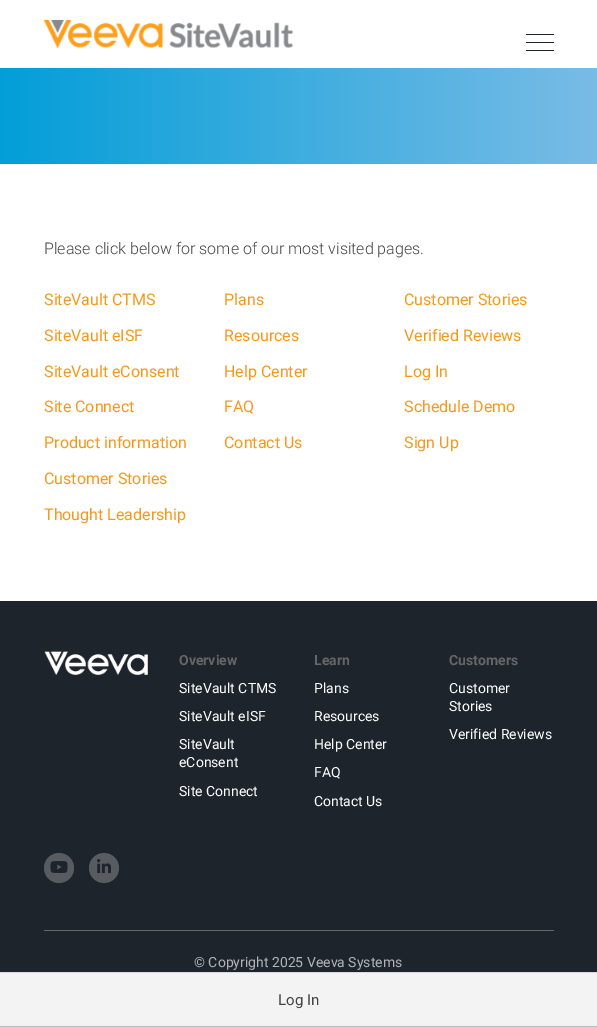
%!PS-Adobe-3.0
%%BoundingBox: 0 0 597 1027
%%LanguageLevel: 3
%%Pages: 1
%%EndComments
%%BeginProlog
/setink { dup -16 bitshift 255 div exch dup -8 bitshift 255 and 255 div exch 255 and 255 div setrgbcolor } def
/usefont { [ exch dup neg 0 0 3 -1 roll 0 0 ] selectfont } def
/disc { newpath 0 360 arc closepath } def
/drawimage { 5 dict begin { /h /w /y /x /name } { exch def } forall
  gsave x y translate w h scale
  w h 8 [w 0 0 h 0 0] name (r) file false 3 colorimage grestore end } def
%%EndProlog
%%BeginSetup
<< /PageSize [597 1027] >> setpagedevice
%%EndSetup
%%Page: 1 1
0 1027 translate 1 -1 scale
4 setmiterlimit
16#FFFFFF setink
0 0 597 1027 rectfill
gsave 0 68 moveto 597 68 lineto 597 164 lineto 0 164 lineto closepath clip newpath
<< /ShadingType 2 /ColorSpace /DeviceRGB /Coords [0 65 597 64] /Extend [true true] /Function << /FunctionType 2 /Domain [0 1] /C0 [0.012 0.62 0.847] /C1 [0.475 0.737 0.902] /N 1 >> >> shfill grestore
/Roboto-Light 16 usefont
16#444444 setink
44 254 moveto (Please click below for some of our most visited pages.) show
/Roboto-Regular 16 usefont
16#F7981D setink
[
    [(SiteVault CTMS) 44 305]
    [(SiteVault eISF) 44 341]
    [(SiteVault eConsent) 44 377]
    [(Site Connect) 44 412]
    [(Product information) 44 448]
    [(Customer Stories) 44 484]
    [(Thought Leadership) 44 520]
    [(Plans) 224 305]
    [(Resources) 224 341]
    [(Help Center) 224 377]
    [(FAQ) 224 412]
    [(Contact Us) 224 448]
    [(Customer Stories) 404 305]
    [(Verified Reviews) 404 341]
    [(Log In) 404 377]
    [(Schedule Demo) 404 412]
    [(Sign Up) 404 448]
] { aload pop moveto show } forall
16#1E242C setink
0 601 597 371 rectfill
(img1.raw) 44 651 104 24 drawimage
/Roboto-Bold 14 usefont
16#666666 setink
179 665 moveto (Overview) show
/Roboto-Regular 14 usefont
16#FFFFFF setink
[
    [(SiteVault CTMS) 179 693]
    [(SiteVault eISF) 179 721]
    [(SiteVault) 179 749]
    [(eConsent) 179 767]
    [(Site Connect) 179 796]
] { aload pop moveto show } forall
/Roboto-Bold 14 usefont
16#666666 setink
314 665 moveto (Learn) show
/Roboto-Regular 14 usefont
16#FFFFFF setink
[
    [(Plans) 314 693]
    [(Resources) 314 721]
    [(Help Center) 314 749]
    [(FAQ) 314 777]
    [(Contact Us) 314 806]
] { aload pop moveto show } forall
/Roboto-Bold 14 usefont
16#666666 setink
449 665 moveto (Customers) show
/Roboto-Regular 14 usefont
16#FFFFFF setink
[
    [(Customer) 449 693]
    [(Stories) 449 711]
    [(Verified Reviews) 449 739]
] { aload pop moveto show } forall
16#585C61 setink
59 868 15 disc fill
(img2.raw) 50 861 18 12 drawimage
104 868 15 disc fill
(img3.raw) 97 859 14 14 drawimage
16#666666 setink
44 930 510 1 rectfill
16#B4B4B6 setink
194 967 moveto (© Copyright 2025 Veeva Systems) show
(img4.raw) 43 20 251 28 drawimage
[
    [526 42 28 1 16#1E242C]
    [526 34 28 1 16#1E242C]
    [526 50 28 1 16#1E242C]
    [0 973 597 53 16#F3F3F3]
    [0 972 597 1 16#D8DADB]
    [0 1026 597 1 16#BABABA]
] { aload pop setink rectfill } forall
/Roboto-Regular 15 usefont
16#444444 setink
278 1005 moveto (Log In) show
showpage
%%EOF
